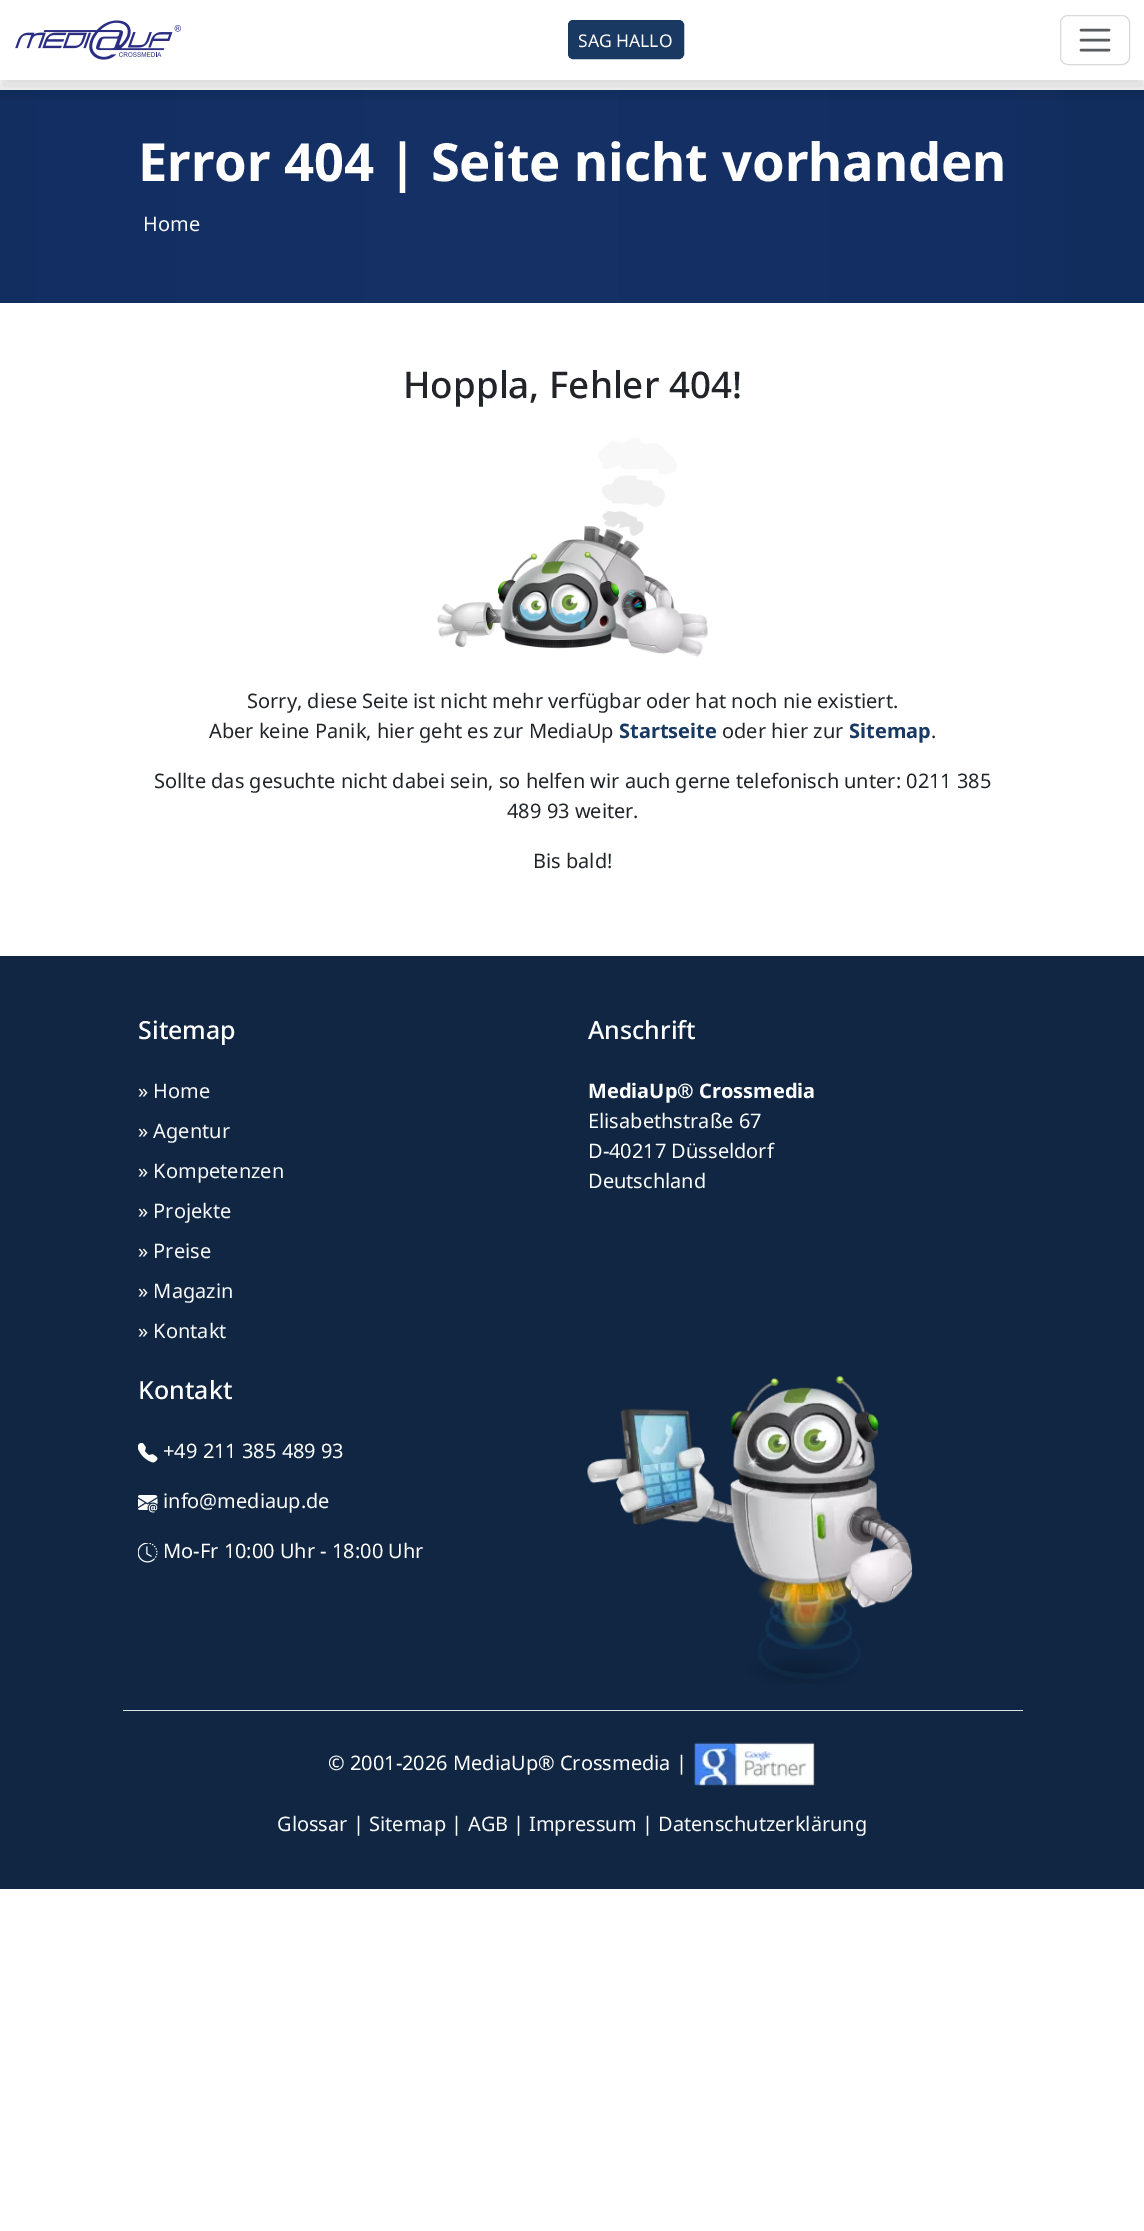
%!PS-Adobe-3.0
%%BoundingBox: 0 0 1144 2231
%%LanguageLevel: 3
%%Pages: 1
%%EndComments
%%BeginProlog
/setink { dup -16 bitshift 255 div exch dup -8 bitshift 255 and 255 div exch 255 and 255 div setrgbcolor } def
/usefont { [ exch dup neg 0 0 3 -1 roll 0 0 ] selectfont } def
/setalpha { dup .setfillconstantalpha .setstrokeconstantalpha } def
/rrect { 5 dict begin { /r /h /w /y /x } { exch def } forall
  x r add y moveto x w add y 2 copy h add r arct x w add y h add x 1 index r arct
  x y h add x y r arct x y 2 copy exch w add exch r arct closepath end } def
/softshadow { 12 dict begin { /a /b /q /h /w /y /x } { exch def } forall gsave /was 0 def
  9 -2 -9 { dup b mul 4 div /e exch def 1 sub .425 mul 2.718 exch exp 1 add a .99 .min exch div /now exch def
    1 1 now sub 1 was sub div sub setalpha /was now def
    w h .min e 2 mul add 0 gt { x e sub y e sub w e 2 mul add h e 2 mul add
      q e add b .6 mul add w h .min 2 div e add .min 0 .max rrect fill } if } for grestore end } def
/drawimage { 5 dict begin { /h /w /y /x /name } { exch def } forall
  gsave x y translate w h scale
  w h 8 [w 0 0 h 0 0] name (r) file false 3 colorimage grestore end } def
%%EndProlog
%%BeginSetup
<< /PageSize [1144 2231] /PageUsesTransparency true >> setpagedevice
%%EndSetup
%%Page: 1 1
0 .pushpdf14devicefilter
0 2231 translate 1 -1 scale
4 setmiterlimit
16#FFFFFF setink
0 0 1144 2231 rectfill
(img2.raw) 0 90 1144 213 drawimage
gsave
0 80 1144 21 rectclip
16#000000 setink
0 10 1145 80 0 10 0.15 softshadow
grestore
(img1.raw) 15 20 166 40 drawimage
16#193962 setink
568.5 20.5 115 38 4.5 rrect gsave fill grestore
stroke
/NotoSans-Regular 17.5 usefont
16#FFFFFF setink
578 47 moveto (SAG HALLO) show
16#D9D9D9 setink
1060.5 15.5 69 49 7.5 rrect stroke
16#595C5F setink
2.5 setlinewidth
1 setlinecap
1081 30 moveto 1109 30 lineto 1081 40 moveto 1109 40 lineto 1081 50 moveto 1109 50 lineto stroke
/NotoSans-Bold 52.5 usefont
16#FFFFFF setink
138 181 moveto (Error 404 | Seite nicht vorhanden) show
/NotoSans-Regular 20 usefont
16#F8F9FA setink
143 231 moveto (Home) show
/NotoSans-Medium 36.75 usefont
16#212529 setink
403 398 moveto (Hoppla, Fehler 404!) show
(img3.raw) 437 438 271 219 drawimage
/NotoSans-Regular 20 usefont
247 708 moveto (Sorry, diese Seite ist nicht mehr verfügbar oder hat noch nie existiert.) show
209 738 moveto (Aber keine Panik, hier geht es zur MediaUp) show
/NotoSans-Bold 20 usefont
16#193962 setink
619 738 moveto (Startseite) show
/NotoSans-Regular 20 usefont
16#212529 setink
722 738 moveto (oder hier zur) show
/NotoSans-Bold 20 usefont
16#193962 setink
849 738 moveto (Sitemap) show
/NotoSans-Regular 20 usefont
16#212529 setink
[
    [(.) 931 738]
    [(Sollte das gesuchte nicht dabei sein, so helfen wir auch gerne telefonisch unter: 0211 385) 154 788]
    [(489 93 weiter.) 507 818]
    [(Bis bald!) 533 868]
] { aload pop moveto show } forall
16#102643 setink
0 956 1144 933 rectfill
/NotoSans-Medium 25 usefont
16#FFFFFF setink
138 1039 moveto (Sitemap) show
/NotoSans-Regular 20 usefont
16#F8F9FA setink
[
    [(» Home) 138 1098]
    [(» Agentur) 138 1138]
    [(» Kompetenzen) 138 1178]
    [(» Projekte) 138 1218]
    [(» Preise) 138 1258]
    [(» Magazin) 138 1298]
    [(» Kontakt) 138 1338]
] { aload pop moveto show } forall
/NotoSans-Medium 25 usefont
16#FFFFFF setink
588 1039 moveto (Anschrift) show
/NotoSans-Bold 20 usefont
588 1098 moveto (MediaUp® Crossmedia) show
/NotoSans-Regular 20 usefont
[
    [(Elisabethstraße 67) 588 1128]
    [(D-40217 Düsseldorf) 588 1158]
    [(Deutschland) 588 1188]
] { aload pop moveto show } forall
/NotoSans-Medium 25 usefont
138 1399 moveto (Kontakt) show
(img4.raw) 138 1443 20 20 drawimage
/NotoSans-Regular 20 usefont
163 1458 moveto (+49 211 385 489 93) show
(img5.raw) 138 1495 20 18 drawimage
163 1508 moveto (info@mediaup.de) show
(img6.raw) 138 1543 20 20 drawimage
163 1558 moveto (Mo-Fr 10:00 Uhr - 18:00 Uhr) show
(img7.raw) 587 1376 326 308 drawimage
16#DEE2E6 setink
123 1710 900 1 rectfill
16#FFFFFF setink
328 1770 moveto (© 2001-2026 MediaUp® Crossmedia |) show
(img8.raw) 693 1742 122 44 drawimage
16#F8F9FA setink
277 1831 moveto (Glossar) show
16#FFFFFF setink
353 1831 moveto (|) show
16#F8F9FA setink
369 1831 moveto (Sitemap) show
16#FFFFFF setink
451 1831 moveto (|) show
16#F8F9FA setink
468 1831 moveto (AGB) show
16#FFFFFF setink
513 1831 moveto (|) show
16#F8F9FA setink
529 1831 moveto (Impressum) show
16#FFFFFF setink
642 1831 moveto (|) show
16#F8F9FA setink
658 1831 moveto (Datenschutzerklärung) show
.poppdf14devicefilter showpage
%%EOF
